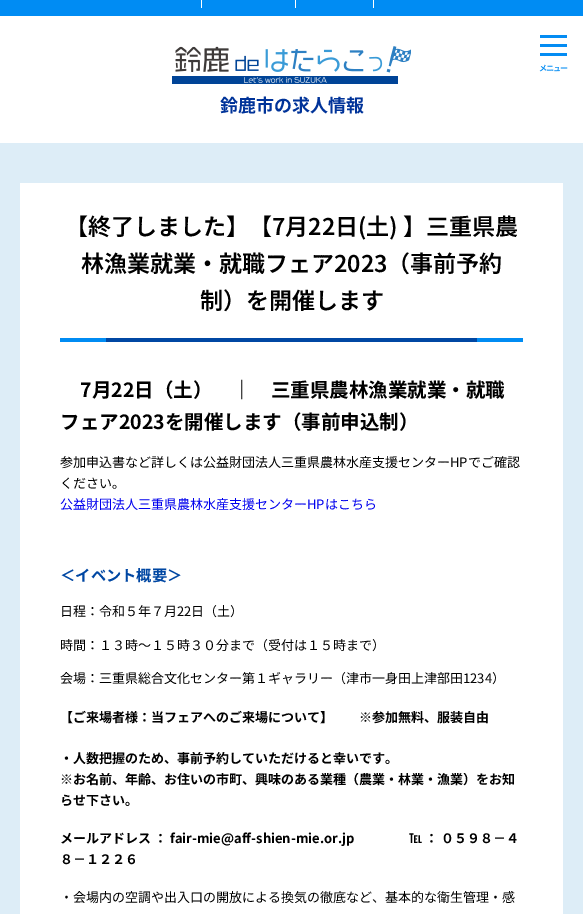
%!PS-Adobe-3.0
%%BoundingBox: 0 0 583 914
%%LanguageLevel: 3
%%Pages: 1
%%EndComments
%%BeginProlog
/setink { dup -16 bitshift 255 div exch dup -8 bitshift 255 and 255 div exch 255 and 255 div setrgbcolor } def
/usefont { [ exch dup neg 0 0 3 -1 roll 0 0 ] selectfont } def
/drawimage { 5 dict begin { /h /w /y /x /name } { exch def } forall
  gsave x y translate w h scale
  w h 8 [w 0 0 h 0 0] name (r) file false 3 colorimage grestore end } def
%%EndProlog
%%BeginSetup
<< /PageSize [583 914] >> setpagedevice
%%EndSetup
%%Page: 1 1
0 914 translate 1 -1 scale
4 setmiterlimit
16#DDEDF7 setink
0 0 583 914 rectfill
[
    [0 16 583 127 16#FFFFFF]
    [0 0 583 16 16#008CF3]
    [201 0 1 8 16#FFFFFF]
    [295 0 1 8 16#FFFFFF]
    [373 0 1 8 16#FFFFFF]
    [540 35 27 3 16#048CF3]
    [540 44 27 3 16#048CF3]
    [540 53 27 3 16#048CF3]
] { aload pop setink rectfill } forall
/NotoSansJP-SemiBold 8 usefont
539 71 moveto -1 0 (メニュー) ashow
(img1.raw) 172 46 239 38 drawimage
/NotoSansJP-Bold 18 usefont
16#003399 setink
220 112 moveto (鈴鹿市の求人情報) show
16#FFFFFF setink
20 183 543 731 rectfill
16#0047A3 setink
106 338 371 4 rectfill
/NotoSansJP-SemiBold 23 usefont
16#000000 setink
[
    [(【終了しました】【7月22日\(土\) 】三重県農) 65 235]
    [(林漁業就業・就職フェア2023（事前予約) 81 272]
    [(制）を開催します) 200 309]
] { aload pop moveto show } forall
16#008CF3 setink
60 338 46 4 rectfill
477 338 46 4 rectfill
/NotoSansJP-Bold 19.5 usefont
16#000000 setink
80 397 moveto (7月22日（土）　｜　三重県農林漁業就業・就職) show
60 429 moveto (フェア2023を開催します（事前申込制）) show
/NotoSansJP-Regular 13 usefont
60 467 moveto (参加申込書など詳しくは公益財団法人三重県農林水産支援センターHPでご確認) show
60 488 moveto (ください。) show
16#0000EE setink
60 509 moveto (公益財団法人三重県農林水産支援センターHPはこちら) show
/NotoSansJP-Bold 15.25 usefont
16#0047A3 setink
60 581 moveto (＜イベント概要＞) show
/NotoSansJP-Regular 13 usefont
16#000000 setink
[
    [(日程：令和５年７月22日（土）) 60 616]
    [(時間：１３時～１５時３０分まで（受付は１５時まで）) 60 650]
    [(会場：三重県総合文化センター第１ギャラリー（津市一身田上津部田1234）) 60 683]
] { aload pop moveto show } forall
/NotoSansJP-Bold 13 usefont
[
    [(【ご来場者様：当フェアへのご来場について】) 60 722]
    [(※参加無料、服装自由) 359 722]
    [(・人数把握のため、事前予約していただけると幸いです。) 60 763]
    [(※お名前、年齢、お住いの市町、興味のある業種（農業・林業・漁業）をお知) 60 784]
    [(らせ下さい。) 60 805]
    [(メールアドレス ： fair-mie@aff-shien-mie.or.jp　　 　　℡ ： ０５９８－４) 60 843]
    [(８－１２２６) 60 864]
] { aload pop moveto show } forall
/NotoSansJP-Regular 13 usefont
60 902 moveto (・会場内の空調や出入口の開放による換気の徹底など、基本的な衛生管理・感) show
showpage
%%EOF
